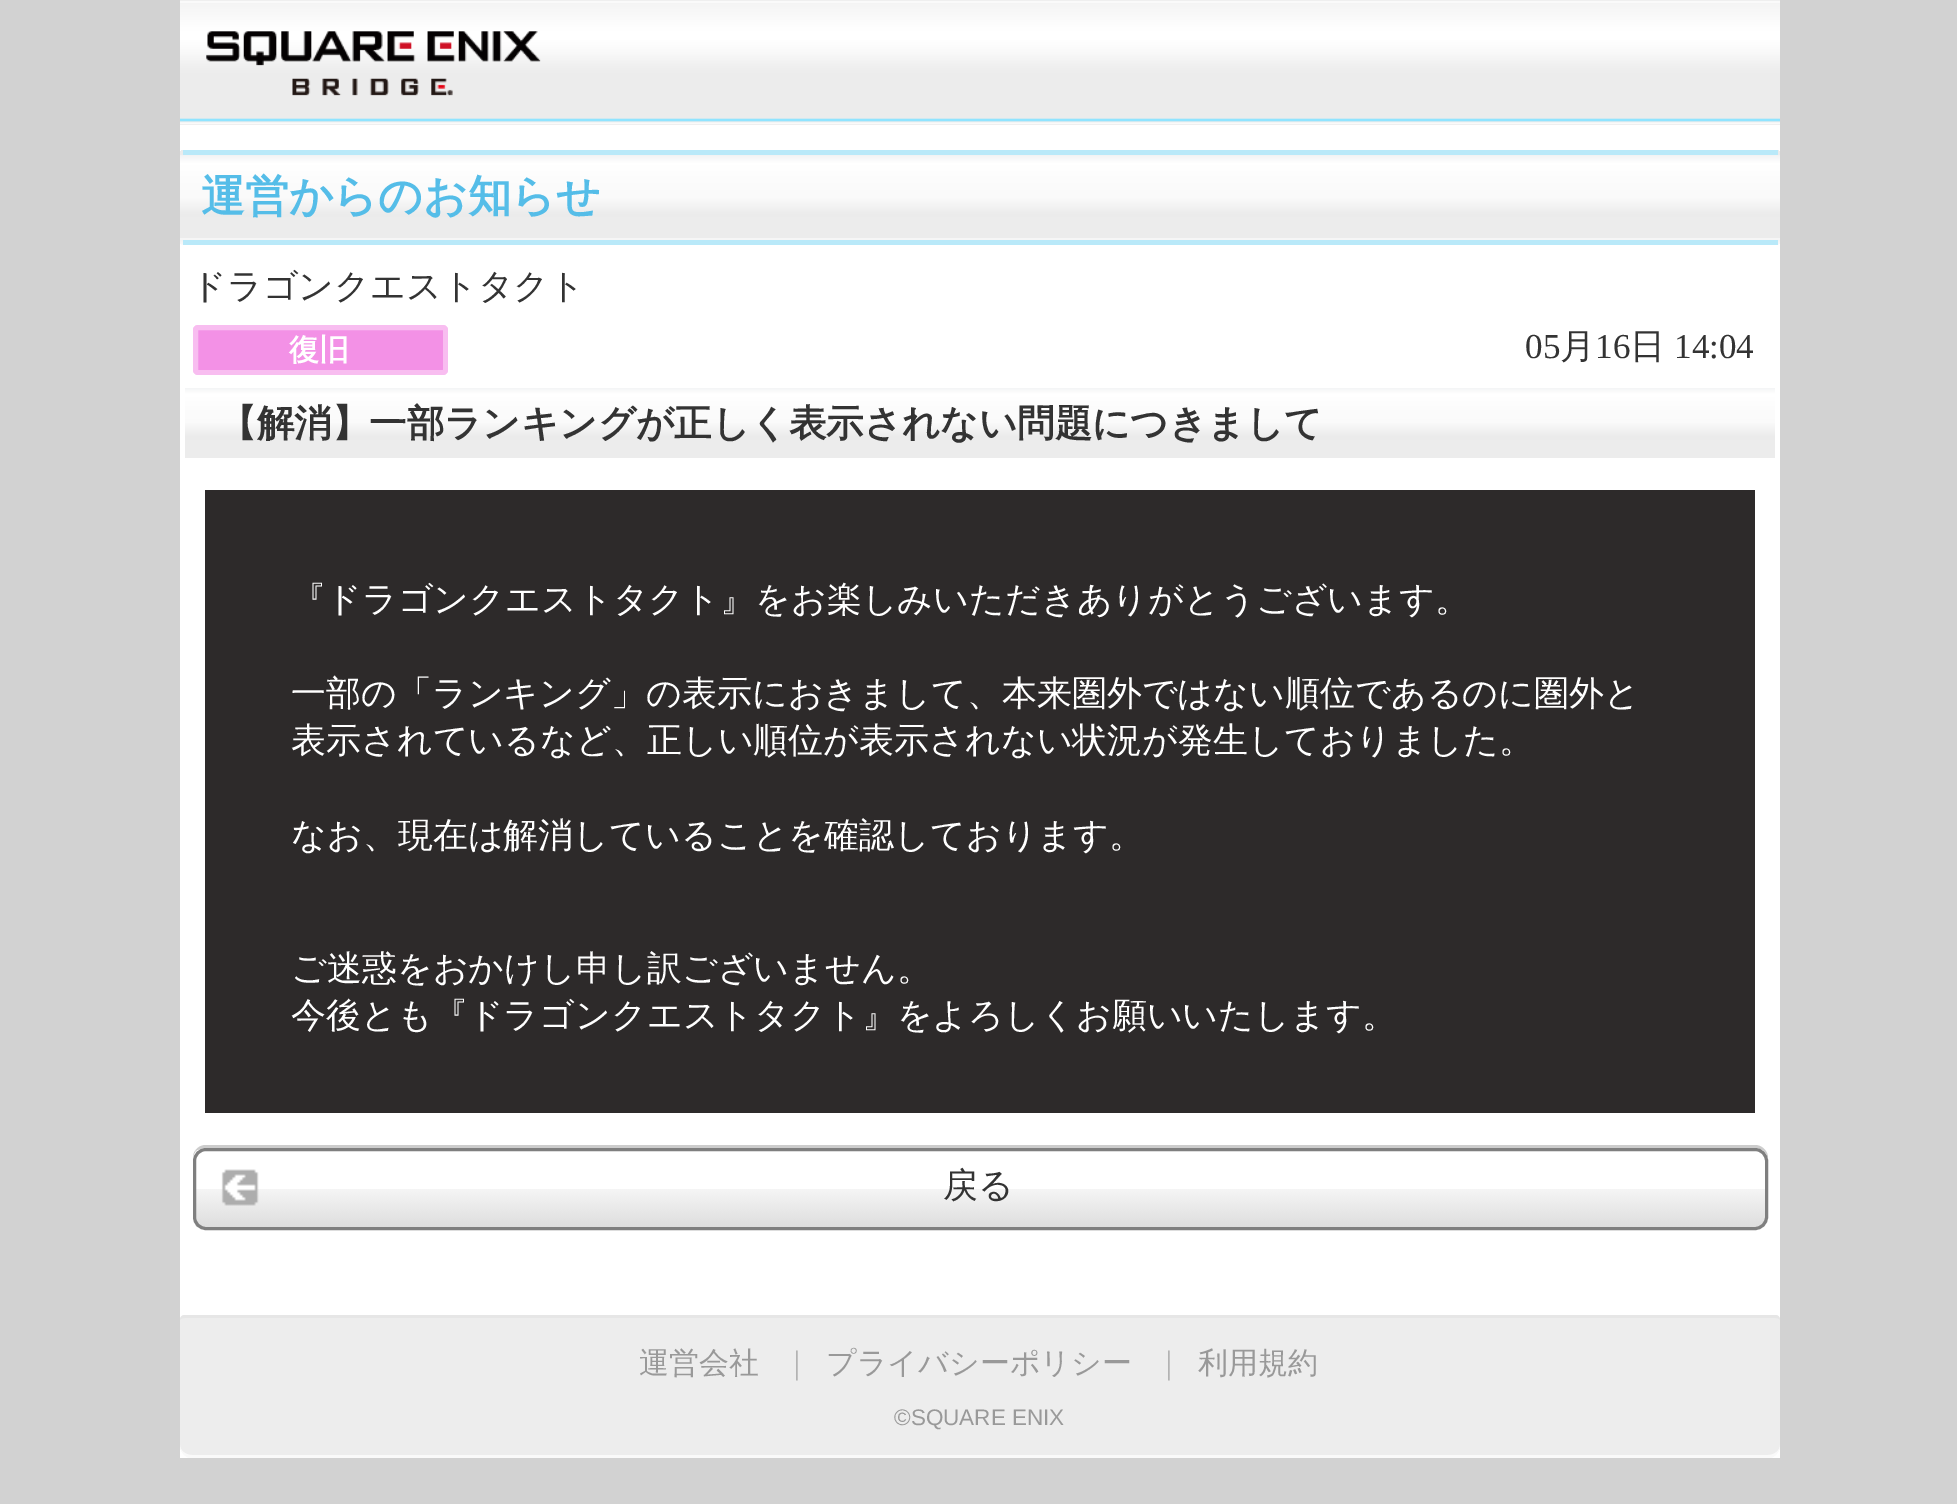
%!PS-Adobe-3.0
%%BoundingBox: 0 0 1957 1504
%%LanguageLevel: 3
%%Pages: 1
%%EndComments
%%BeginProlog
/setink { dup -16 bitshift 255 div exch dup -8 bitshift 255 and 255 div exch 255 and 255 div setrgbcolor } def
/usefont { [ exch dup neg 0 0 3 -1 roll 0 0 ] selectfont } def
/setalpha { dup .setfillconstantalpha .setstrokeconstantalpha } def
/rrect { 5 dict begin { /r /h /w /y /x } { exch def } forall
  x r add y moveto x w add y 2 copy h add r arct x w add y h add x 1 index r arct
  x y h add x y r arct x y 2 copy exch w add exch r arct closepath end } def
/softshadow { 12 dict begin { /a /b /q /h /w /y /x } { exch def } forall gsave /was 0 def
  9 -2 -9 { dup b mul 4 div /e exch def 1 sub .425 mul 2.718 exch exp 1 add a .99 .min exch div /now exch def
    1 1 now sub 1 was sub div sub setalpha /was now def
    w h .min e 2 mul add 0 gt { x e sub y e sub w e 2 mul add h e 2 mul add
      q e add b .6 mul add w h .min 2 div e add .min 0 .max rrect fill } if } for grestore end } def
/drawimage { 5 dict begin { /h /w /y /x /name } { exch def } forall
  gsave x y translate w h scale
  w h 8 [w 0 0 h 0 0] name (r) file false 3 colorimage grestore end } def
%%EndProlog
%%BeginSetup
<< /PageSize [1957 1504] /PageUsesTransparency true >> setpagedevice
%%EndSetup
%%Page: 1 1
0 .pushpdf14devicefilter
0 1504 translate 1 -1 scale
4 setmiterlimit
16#D2D2D2 setink
0 0 1957 1504 rectfill
16#FFFFFF setink
180 125 1600 1333 rectfill
(img1.raw) 180 0 1600 125 drawimage
(img2.raw) 206 31 335 65 drawimage
gsave 185 150 moveto 1775 150 lineto 1778 150 1780 152 1780 155 curveto 180 155 lineto 180 152 182 150 185 150 curveto closepath clip newpath
<< /ShadingType 2 /ColorSpace /DeviceRGB /Coords [980 70 980 155] /Extend [true true] /Function << /FunctionType 3 /Domain [0 1] /Functions [<< /FunctionType 2 /Domain [0 1] /C0 [0.949 0.953 0.957] /C1 [1 1 1] /N 1 >> << /FunctionType 2 /Domain [0 1] /C0 [1 1 1] /C1 [0.98 0.98 0.98] /N 1 >> << /FunctionType 2 /Domain [0 1] /C0 [0.98 0.98 0.98] /C1 [0.922 0.922 0.922] /N 1 >> << /FunctionType 2 /Domain [0 1] /C0 [0.922 0.922 0.922] /C1 [0.925 0.925 0.925] /N 1 >>] /Bounds [0.1 0.5 0.7] /Encode [0 1 0 1 0 1 0 1] >> >> shfill grestore
gsave 180 155 moveto 1780 155 lineto 1780 238 lineto 180 238 lineto closepath clip newpath
<< /ShadingType 2 /ColorSpace /DeviceRGB /Coords [980 155 980 240] /Extend [true true] /Function << /FunctionType 3 /Domain [0 1] /Functions [<< /FunctionType 2 /Domain [0 1] /C0 [0.949 0.953 0.957] /C1 [1 1 1] /N 1 >> << /FunctionType 2 /Domain [0 1] /C0 [1 1 1] /C1 [0.98 0.98 0.98] /N 1 >> << /FunctionType 2 /Domain [0 1] /C0 [0.98 0.98 0.98] /C1 [0.922 0.922 0.922] /N 1 >> << /FunctionType 2 /Domain [0 1] /C0 [0.922 0.922 0.922] /C1 [0.925 0.925 0.925] /N 1 >>] /Bounds [0.1 0.5 0.7] /Encode [0 1 0 1 0 1 0 1] >> >> shfill grestore
gsave 180 240 moveto 1780 240 lineto 1780 243 1778 245 1775 245 curveto 185 245 lineto 182 245 180 243 180 240 curveto closepath clip newpath
<< /ShadingType 2 /ColorSpace /DeviceRGB /Coords [980 240 980 325] /Extend [true true] /Function << /FunctionType 3 /Domain [0 1] /Functions [<< /FunctionType 2 /Domain [0 1] /C0 [0.949 0.953 0.957] /C1 [1 1 1] /N 1 >> << /FunctionType 2 /Domain [0 1] /C0 [1 1 1] /C1 [0.98 0.98 0.98] /N 1 >> << /FunctionType 2 /Domain [0 1] /C0 [0.98 0.98 0.98] /C1 [0.922 0.922 0.922] /N 1 >> << /FunctionType 2 /Domain [0 1] /C0 [0.922 0.922 0.922] /C1 [0.925 0.925 0.925] /N 1 >>] /Bounds [0.1 0.5 0.7] /Encode [0 1 0 1 0 1 0 1] >> >> shfill grestore
[
    [180 238 1600 2 16#F6F6F6]
    [183 150 1595 5 16#B9E9F9]
    [183 240 1595 5 16#B9E9F9]
] { aload pop setink rectfill } forall
/WenQuanYiZenHei-Bold 43.75 usefont
16#55BDE8 setink
201 211 moveto (運営からのお知らせ) show
/WenQuanYiZenHei-Medium 35 usefont
16#333333 setink
191 298 moveto (ドラゴンクエストタクト) show
16#F391E6 setink
193 325 255 50 5 rrect fill
0.4 setalpha
16#FFFFFF setink
5 setlinewidth
195.5 327.5 250 45 2.5 rrect stroke
/WenQuanYiZenHei-Bold 30 usefont
1 setalpha
289 360 moveto (復旧) show
/LiberationSerif-Regular 35 usefont
16#333333 setink
1525 358 moveto (05) show
/WenQuanYiZenHei-Medium 35 usefont
1560 358 moveto (月) show
/LiberationSerif-Regular 35 usefont
1595 358 moveto (16) show
/WenQuanYiZenHei-Medium 35 usefont
1630 358 moveto (日) show
/LiberationSerif-Regular 35 usefont
1674 358 moveto (14:04) show
gsave 185 388 moveto 1775 388 lineto 1775 458 lineto 185 458 lineto closepath clip newpath
<< /ShadingType 2 /ColorSpace /DeviceRGB /Coords [980 387 980 458] /Extend [true true] /Function << /FunctionType 3 /Domain [0 1] /Functions [<< /FunctionType 2 /Domain [0 1] /C0 [0.949 0.953 0.957] /C1 [1 1 1] /N 1 >> << /FunctionType 2 /Domain [0 1] /C0 [1 1 1] /C1 [0.98 0.98 0.98] /N 1 >> << /FunctionType 2 /Domain [0 1] /C0 [0.98 0.98 0.98] /C1 [0.922 0.922 0.922] /N 1 >> << /FunctionType 2 /Domain [0 1] /C0 [0.922 0.922 0.922] /C1 [0.925 0.925 0.925] /N 1 >>] /Bounds [0.1 0.5 0.7] /Encode [0 1 0 1 0 1 0 1] >> >> shfill grestore
/WenQuanYiZenHei-Bold 37.5 usefont
219 436 moveto (【解消】一部ランキングが正しく表示されない問題につきまして) show
16#2D2A2A setink
205 490 1550 623 rectfill
/WenQuanYiZenHei-Medium 35 usefont
16#FFFFFF setink
[
    [(『ドラゴンクエストタクト』をお楽しみいただきありがとうございます。) 291 611]
    [(一部の「ランキング」の表示におきまして、本来圏外ではない順位であるのに圏外と) 291 705]
    [(表示されているなど、正しい順位が表示されない状況が発生しておりました。) 291 752]
    [(なお、現在は解消していることを確認しております。) 291 847]
    [(ご迷惑をおかけし申し訳ございません。) 291 980]
    [(今後とも『ドラゴンクエストタクト』をよろしくお願いいたします。) 291 1027]
] { aload pop moveto show } forall
16#CCCCCC setink
206 1145 moveto 199 1145 194 1150 193 1156 curveto 195 1151 199 1148 205 1148 curveto 1755 1148 lineto 1762 1148 1768 1153 1768 1160 curveto 1767 1219 lineto 1768 1215 lineto 1768 1158 lineto 1768 1151 1762 1145 1755 1145 curveto closepath fill
16#FFFFFF setink
193 1150 1575 83 13 1 1 softshadow
(img3.raw) 195 1150 1570 78 drawimage
16#7F7F7F setink
3 setlinewidth
194.5 1149.5 1572 79 11.5 rrect stroke
16#333333 setink
943 1197 moveto (戻る) show
16#EDEDED setink
185 1315 moveto 1775 1315 lineto 1778 1315 1780 1317 1780 1320 curveto 1780 1445 lineto 1780 1452 1774 1458 1767 1458 curveto 193 1458 lineto 186 1458 180 1452 180 1445 curveto 180 1320 lineto 180 1317 182 1315 185 1315 curveto closepath fill
16#E6E6E6 setink
185 1315 moveto 182 1315 180 1317 180 1320 curveto 180 1319 182 1318 185 1318 curveto 1775 1318 lineto 1778 1318 1780 1319 1780 1320 curveto 1780 1317 1778 1315 1775 1315 curveto closepath fill
16#FAFAFA setink
1771 1458 moveto 1776 1456 1780 1451 1780 1445 curveto 1780 1451 1774 1455 1768 1455 curveto 192 1455 lineto 186 1455 180 1451 180 1445 curveto 180 1451 184 1456 189 1458 curveto closepath fill
/WenQuanYiZenHei-Medium 30 usefont
16#999999 setink
639 1373 moveto (運営会社) show
16#B3B3B3 setink
782 1373 moveto (｜) show
16#999999 setink
826 1373 moveto (プライバシーポリシー) show
16#B3B3B3 setink
1154 1373 moveto (｜) show
16#999999 setink
1198 1373 moveto (利用規約) show
/LiberationSans-Regular 22.5 usefont
894 1425 moveto (©SQUARE ENIX) show
.poppdf14devicefilter showpage
%%EOF
